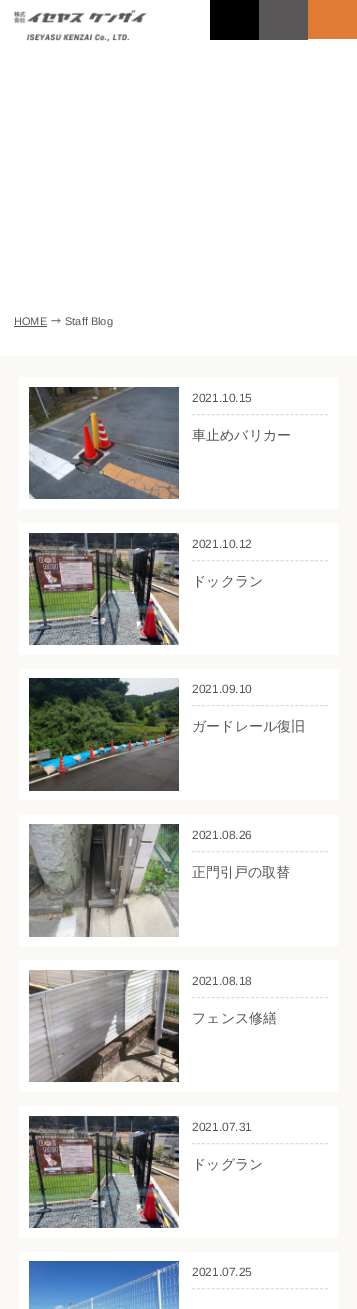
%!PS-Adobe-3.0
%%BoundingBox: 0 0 357 1309
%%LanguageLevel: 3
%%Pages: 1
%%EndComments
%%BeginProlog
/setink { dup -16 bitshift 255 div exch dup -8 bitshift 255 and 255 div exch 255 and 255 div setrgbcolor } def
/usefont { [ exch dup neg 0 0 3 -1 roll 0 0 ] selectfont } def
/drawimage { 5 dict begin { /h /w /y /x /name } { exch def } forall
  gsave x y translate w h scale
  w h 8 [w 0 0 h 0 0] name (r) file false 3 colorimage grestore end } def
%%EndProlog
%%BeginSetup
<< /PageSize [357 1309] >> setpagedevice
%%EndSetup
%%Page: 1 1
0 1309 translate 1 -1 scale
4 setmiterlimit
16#FAF9F6 setink
0 0 357 1309 rectfill
16#FFFFFF setink
0 0 357 356 rectfill
(img1.raw) 14 10 133 32 drawimage
[
    [210 0 49 40 16#000000]
    [259 0 49 40 16#595757]
    [308 0 49 39 16#E17B33]
] { aload pop setink rectfill } forall
/LiberationSans-Regular 11 usefont
16#575757 setink
14 325 moveto (HOME) show
14 326 33 1 rectfill
(img2.raw) 51 318 10 5 drawimage
65 325 moveto (Staff Blog) show
16#FFFFFF setink
19 377 319 132 rectfill
(img3.raw) 29 387 150 112 drawimage
16#DDDDDD setink
[3 1.93] 0 setdash
192 414.5 moveto 328 414.5 lineto stroke
/LiberationSans-Regular 12 usefont
16#575757 setink
192 402 moveto (2021.10.15) show
/WenQuanYiZenHei-Medium 14 usefont
192 440 moveto (車止めバリカー) show
16#FFFFFF setink
19 523 319 132 rectfill
(img4.raw) 29 533 150 112 drawimage
16#DDDDDD setink
192 560.5 moveto 328 560.5 lineto stroke
/LiberationSans-Regular 12 usefont
16#575757 setink
192 548 moveto (2021.10.12) show
/WenQuanYiZenHei-Medium 14 usefont
192 586 moveto (ドックラン) show
16#FFFFFF setink
19 669 319 131 rectfill
(img5.raw) 29 678 150 113 drawimage
16#DDDDDD setink
192 705.5 moveto 328 705.5 lineto stroke
/LiberationSans-Regular 12 usefont
16#575757 setink
192 693 moveto (2021.09.10) show
/WenQuanYiZenHei-Medium 14 usefont
192 731 moveto (ガードレール復旧) show
16#FFFFFF setink
19 815 319 131 rectfill
(img6.raw) 29 824 150 113 drawimage
16#DDDDDD setink
192 851.5 moveto 328 851.5 lineto stroke
/LiberationSans-Regular 12 usefont
16#575757 setink
192 839 moveto (2021.08.26) show
/WenQuanYiZenHei-Medium 14 usefont
192 877 moveto (正門引戸の取替) show
16#FFFFFF setink
19 960 319 132 rectfill
(img7.raw) 29 970 150 112 drawimage
16#DDDDDD setink
192 997.5 moveto 328 997.5 lineto stroke
/LiberationSans-Regular 12 usefont
16#575757 setink
192 985 moveto (2021.08.18) show
/WenQuanYiZenHei-Medium 14 usefont
192 1023 moveto (フェンス修繕) show
16#FFFFFF setink
19 1106 319 132 rectfill
(img8.raw) 29 1116 150 112 drawimage
16#DDDDDD setink
192 1143.5 moveto 328 1143.5 lineto stroke
/LiberationSans-Regular 12 usefont
16#575757 setink
192 1131 moveto (2021.07.31) show
/WenQuanYiZenHei-Medium 14 usefont
192 1169 moveto (ドッグラン) show
16#FFFFFF setink
19 1252 319 57 rectfill
(img9.raw) 29 1261 150 48 drawimage
16#DDDDDD setink
192 1288.5 moveto 328 1288.5 lineto stroke
/LiberationSans-Regular 12 usefont
16#575757 setink
192 1276 moveto (2021.07.25) show
showpage
%%EOF
